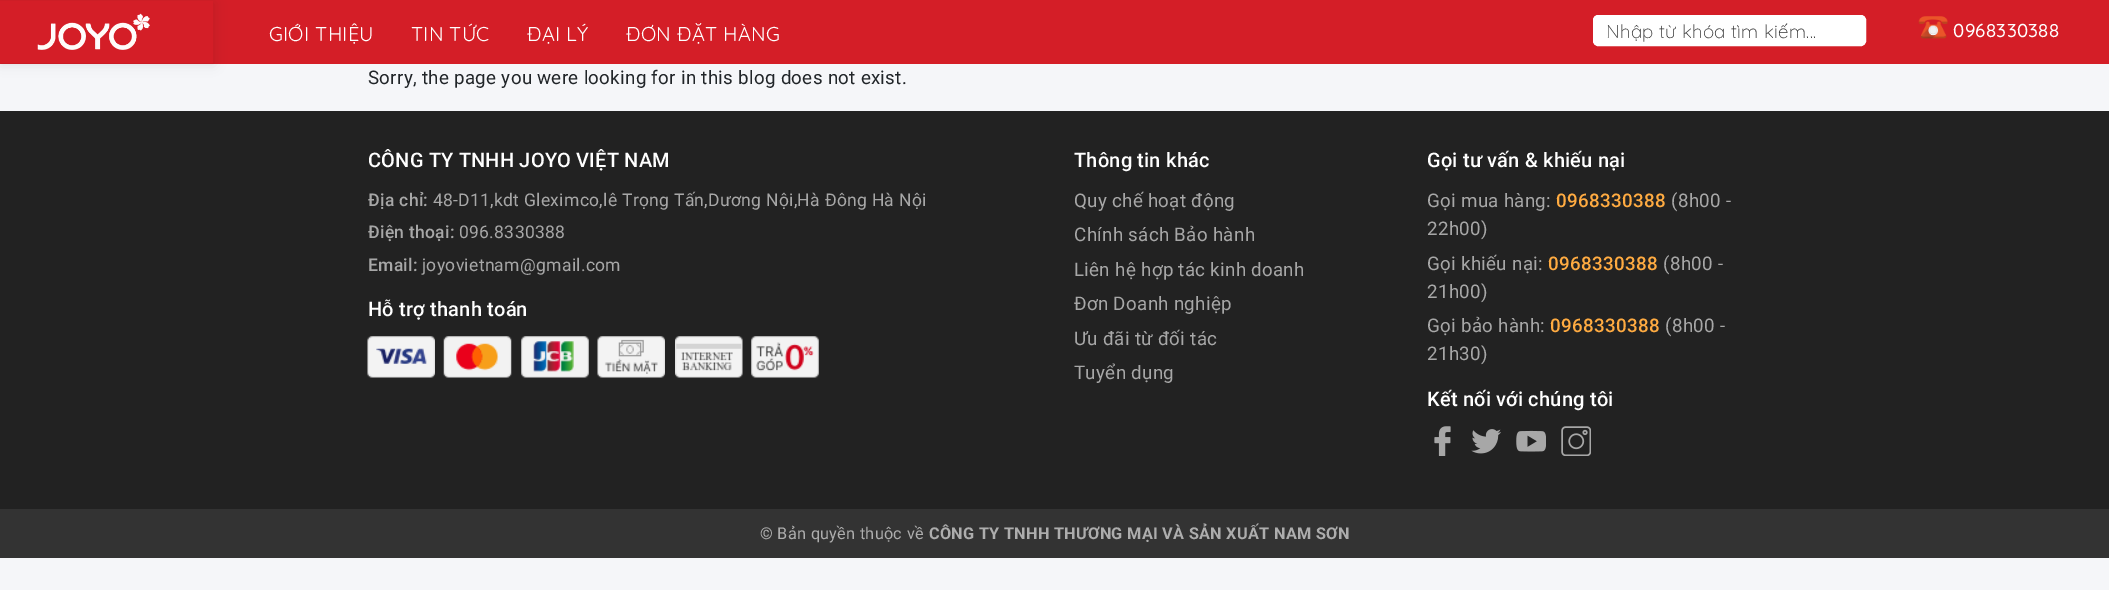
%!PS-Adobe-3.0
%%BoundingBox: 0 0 2109 590
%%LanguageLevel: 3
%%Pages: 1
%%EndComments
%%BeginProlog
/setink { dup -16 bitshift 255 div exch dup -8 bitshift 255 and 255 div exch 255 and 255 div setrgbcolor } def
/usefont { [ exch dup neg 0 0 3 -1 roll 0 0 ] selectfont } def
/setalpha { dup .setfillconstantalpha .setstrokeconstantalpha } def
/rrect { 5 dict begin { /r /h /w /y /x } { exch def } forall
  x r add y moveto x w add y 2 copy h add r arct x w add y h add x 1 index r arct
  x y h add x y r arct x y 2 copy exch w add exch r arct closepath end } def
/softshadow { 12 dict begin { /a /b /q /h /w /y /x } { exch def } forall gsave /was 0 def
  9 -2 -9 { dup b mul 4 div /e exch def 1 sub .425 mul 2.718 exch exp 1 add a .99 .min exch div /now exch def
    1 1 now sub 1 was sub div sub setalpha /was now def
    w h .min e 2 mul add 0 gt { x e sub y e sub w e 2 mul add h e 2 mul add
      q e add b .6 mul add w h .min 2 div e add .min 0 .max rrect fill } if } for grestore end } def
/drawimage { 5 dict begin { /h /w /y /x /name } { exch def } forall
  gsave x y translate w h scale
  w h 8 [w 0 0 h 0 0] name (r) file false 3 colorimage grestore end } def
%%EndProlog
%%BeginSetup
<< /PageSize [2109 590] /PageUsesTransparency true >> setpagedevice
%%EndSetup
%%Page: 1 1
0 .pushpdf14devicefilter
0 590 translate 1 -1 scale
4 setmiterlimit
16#F5F6F9 setink
0 0 2109 590 rectfill
16#D41E27 setink
0 0 2109 64 rectfill
gsave
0 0 moveto 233 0 lineto 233 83 lineto 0 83 lineto closepath 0 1 moveto 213 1 lineto 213 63 lineto 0 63 lineto closepath eoclip newpath
16#000000 setink
1 3 213 61 0 6 0.1 softshadow
grestore
(img1.raw) 37 13 113 37 drawimage
/Quicksand-Regular 20 usefont
16#FFFFFF setink
269 41 moveto 0.3 0 (GIỚI THIỆU) ashow
411 41 moveto 0.3 0 (TIN TỨC) ashow
527 41 moveto 0.3 0 (ĐẠI LÝ) ashow
626 41 moveto 0.3 0 (ĐƠN ĐẶT HÀNG) ashow
1593.5 15.5 272 30 4.5 rrect gsave fill grestore
stroke
/Quicksand-Light 18.75 usefont
16#333333 setink
1606 38 moveto 0.3 0 (Nhập từ khóa tìm kiếm...) ashow
(img2.raw) 1918 16 30 23 drawimage
/Quicksand-Medium 18.75 usefont
16#FFFFFF setink
1953 37 moveto 0.3 0 (0968330388) ashow
/Roboto-Regular 18.75 usefont
16#212529 setink
368 84 moveto 0.3 0 (Sorry, the page you were looking for in this blog does not exist.) ashow
16#222222 setink
0 111 2109 398 rectfill
/Roboto-Medium 20 usefont
16#FFFFFF setink
368 167 moveto 0.2 0 (CÔNG TY TNHH JOYO VIỆT NAM) ashow
/Roboto-Medium 17.5 usefont
16#A7A7A7 setink
368 206 moveto 0.3 0 (Địa chỉ:) ashow
/Roboto-Regular 17.5 usefont
433 206 moveto 0.3 0 (48-D11,kdt Gleximco,lê Trọng Tấn,Dương Nội,Hà Đông Hà Nội) ashow
/Roboto-Medium 17.5 usefont
368 238 moveto 0.3 0 (Điện thoại:) ashow
/Roboto-Regular 17.5 usefont
459 238 moveto 0.3 0 (096.8330388) ashow
/Roboto-Medium 17.5 usefont
368 271 moveto 0.3 0 (Email:) ashow
/Roboto-Regular 17.5 usefont
422 271 moveto 0.3 0 (joyovietnam@gmail.com) ashow
/Roboto-Medium 20 usefont
16#FFFFFF setink
368 316 moveto 0.2 0 (Hỗ trợ thanh toán) ashow
(img3.raw) 367 336 68 42 drawimage
(img4.raw) 443 336 69 42 drawimage
(img5.raw) 521 336 68 42 drawimage
(img6.raw) 597 336 68 42 drawimage
(img7.raw) 675 336 68 42 drawimage
(img8.raw) 751 336 68 42 drawimage
1074 167 moveto 0.2 0 (Thông tin khác) ashow
/Roboto-Regular 18.75 usefont
16#A7A7A7 setink
1074 207 moveto 0.3 0 (Quy chế hoạt động) ashow
1074 241 moveto 0.3 0 (Chính sách Bảo hành) ashow
1074 276 moveto 0.3 0 (Liên hệ hợp tác kinh doanh) ashow
1074 310 moveto 0.3 0 (Đơn Doanh nghiệp) ashow
1074 345 moveto 0.3 0 (Ưu đãi từ đối tác) ashow
1074 379 moveto 0.3 0 (Tuyển dụng) ashow
/Roboto-Medium 20 usefont
16#FFFFFF setink
1427 167 moveto 0.2 0 (Gọi tư vấn & khiếu nại) ashow
/Roboto-Regular 18.75 usefont
16#A7A7A7 setink
1427 207 moveto 0.3 0 (Gọi mua hàng:) ashow
/Roboto-Medium 18.75 usefont
16#FFAB41 setink
1556 207 moveto 0.3 0 (0968330388) ashow
/Roboto-Regular 18.75 usefont
16#A7A7A7 setink
1671 207 moveto 0.3 0 (\(8h00 -) ashow
1427 235 moveto 0.3 0 (22h00\)) ashow
1427 270 moveto 0.3 0 (Gọi khiếu nại:) ashow
/Roboto-Medium 18.75 usefont
16#FFAB41 setink
1548 270 moveto 0.3 0 (0968330388) ashow
/Roboto-Regular 18.75 usefont
16#A7A7A7 setink
1663 270 moveto 0.3 0 (\(8h00 -) ashow
1427 298 moveto 0.3 0 (21h00\)) ashow
1427 332 moveto 0.3 0 (Gọi bảo hành:) ashow
/Roboto-Medium 18.75 usefont
16#FFAB41 setink
1550 332 moveto 0.3 0 (0968330388) ashow
/Roboto-Regular 18.75 usefont
16#A7A7A7 setink
1665 332 moveto 0.3 0 (\(8h00 -) ashow
1427 360 moveto 0.3 0 (21h30\)) ashow
/Roboto-Medium 20 usefont
16#FFFFFF setink
1427 406 moveto 0.2 0 (Kết nối với chúng tôi) ashow
(img9.raw) 1434 426 17 30 drawimage
(img10.raw) 1471 429 30 25 drawimage
(img11.raw) 1516 430 30 22 drawimage
(img12.raw) 1561 426 30 30 drawimage
16#333333 setink
0 509 2109 49 rectfill
/Roboto-Regular 16.25 usefont
16#ADADAD setink
760 539 moveto 0.3 0 (© Bản quyền thuộc về) ashow
/Roboto-Bold 16.25 usefont
929 539 moveto 0.3 0 (CÔNG TY TNHH THƯƠNG MẠI VÀ SẢN XUẤT NAM SƠN) ashow
.poppdf14devicefilter showpage
%%EOF
